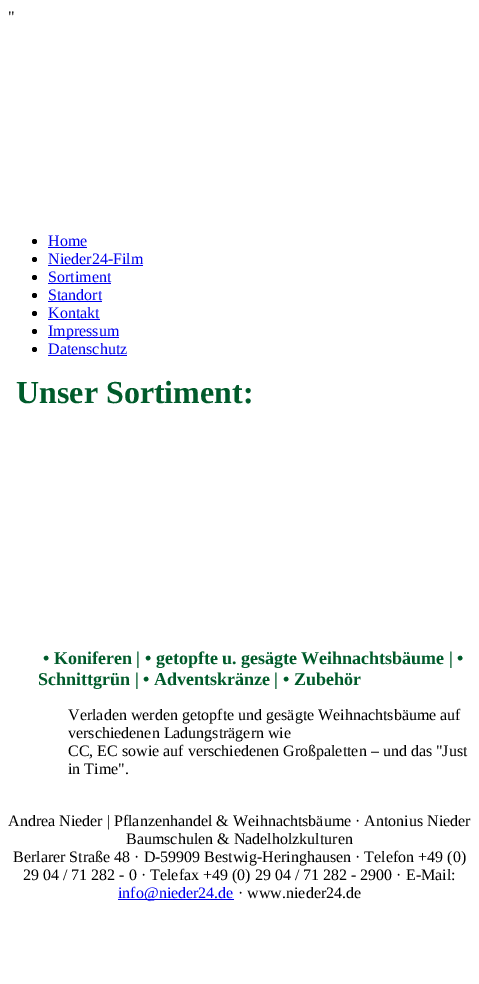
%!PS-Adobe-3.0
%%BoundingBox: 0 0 479 984
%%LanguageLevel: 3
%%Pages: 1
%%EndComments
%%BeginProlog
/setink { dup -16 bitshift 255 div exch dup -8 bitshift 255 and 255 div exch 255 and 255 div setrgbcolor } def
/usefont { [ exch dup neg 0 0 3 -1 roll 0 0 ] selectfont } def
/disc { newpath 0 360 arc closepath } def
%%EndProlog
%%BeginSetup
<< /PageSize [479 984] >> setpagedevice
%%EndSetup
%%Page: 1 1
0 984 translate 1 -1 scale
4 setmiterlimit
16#FFFFFF setink
0 0 479 984 rectfill
/LiberationSerif-Regular 16 usefont
16#000000 setink
8 22 moveto (") show
34.5 241.5 2.5 disc fill
16#0000EE setink
48 246 moveto (Home) show
48 247 39 1 rectfill
16#000000 setink
34.5 259.5 2.5 disc fill
16#0000EE setink
48 264 moveto (Nieder24-Film) show
48 265 95 1 rectfill
16#000000 setink
34.5 277.5 2.5 disc fill
16#0000EE setink
48 282 moveto (Sortiment) show
48 283 63 1 rectfill
16#000000 setink
34.5 295.5 2.5 disc fill
16#0000EE setink
48 300 moveto (Standort) show
48 301 54 1 rectfill
16#000000 setink
34.5 313.5 2.5 disc fill
16#0000EE setink
48 318 moveto (Kontakt) show
48 319 52 1 rectfill
16#000000 setink
34.5 331.5 2.5 disc fill
16#0000EE setink
48 337 71 1 rectfill
48 336 moveto (Impressum) show
16#000000 setink
34.5 349.5 2.5 disc fill
16#0000EE setink
48 354 moveto (Datenschutz) show
48 355 79 1 rectfill
/LiberationSerif-Bold 32 usefont
16#005B2B setink
16 403 moveto (Unser Sortiment:) show
/LiberationSerif-Bold 18 usefont
43 664 moveto (• Koniferen | • getopfte u. gesägte Weihnachtsbäume | •) show
38 685 moveto (Schnittgrün | • Adventskränze | • Zubehör) show
/LiberationSerif-Regular 16 usefont
16#000000 setink
[
    [(Verladen werden getopfte und gesägte Weihnachtsbäume auf) 68 720]
    [(verschiedenen Ladungsträgern wie) 68 738]
    [(CC, EC sowie auf verschiedenen Großpaletten – und das "Just) 68 756]
    [(in Time".) 68 774]
    [(Andrea Nieder | Pflanzenhandel & Weihnachtsbäume · Antonius Nieder) 8 826]
    [(Baumschulen & Nadelholzkulturen) 126 844]
    [(Berlarer Straße 48 · D-59909 Bestwig-Heringhausen · Telefon +49 \(0\)) 13 862]
    [(29 04 / 71 282 - 0 · Telefax +49 \(0\) 29 04 / 71 282 - 2900 · E-Mail:) 23 880]
] { aload pop moveto show } forall
16#0000EE setink
118 899 116 1 rectfill
118 898 moveto (info@nieder24.de) show
16#000000 setink
238 898 moveto (· www.nieder24.de) show
showpage
%%EOF
